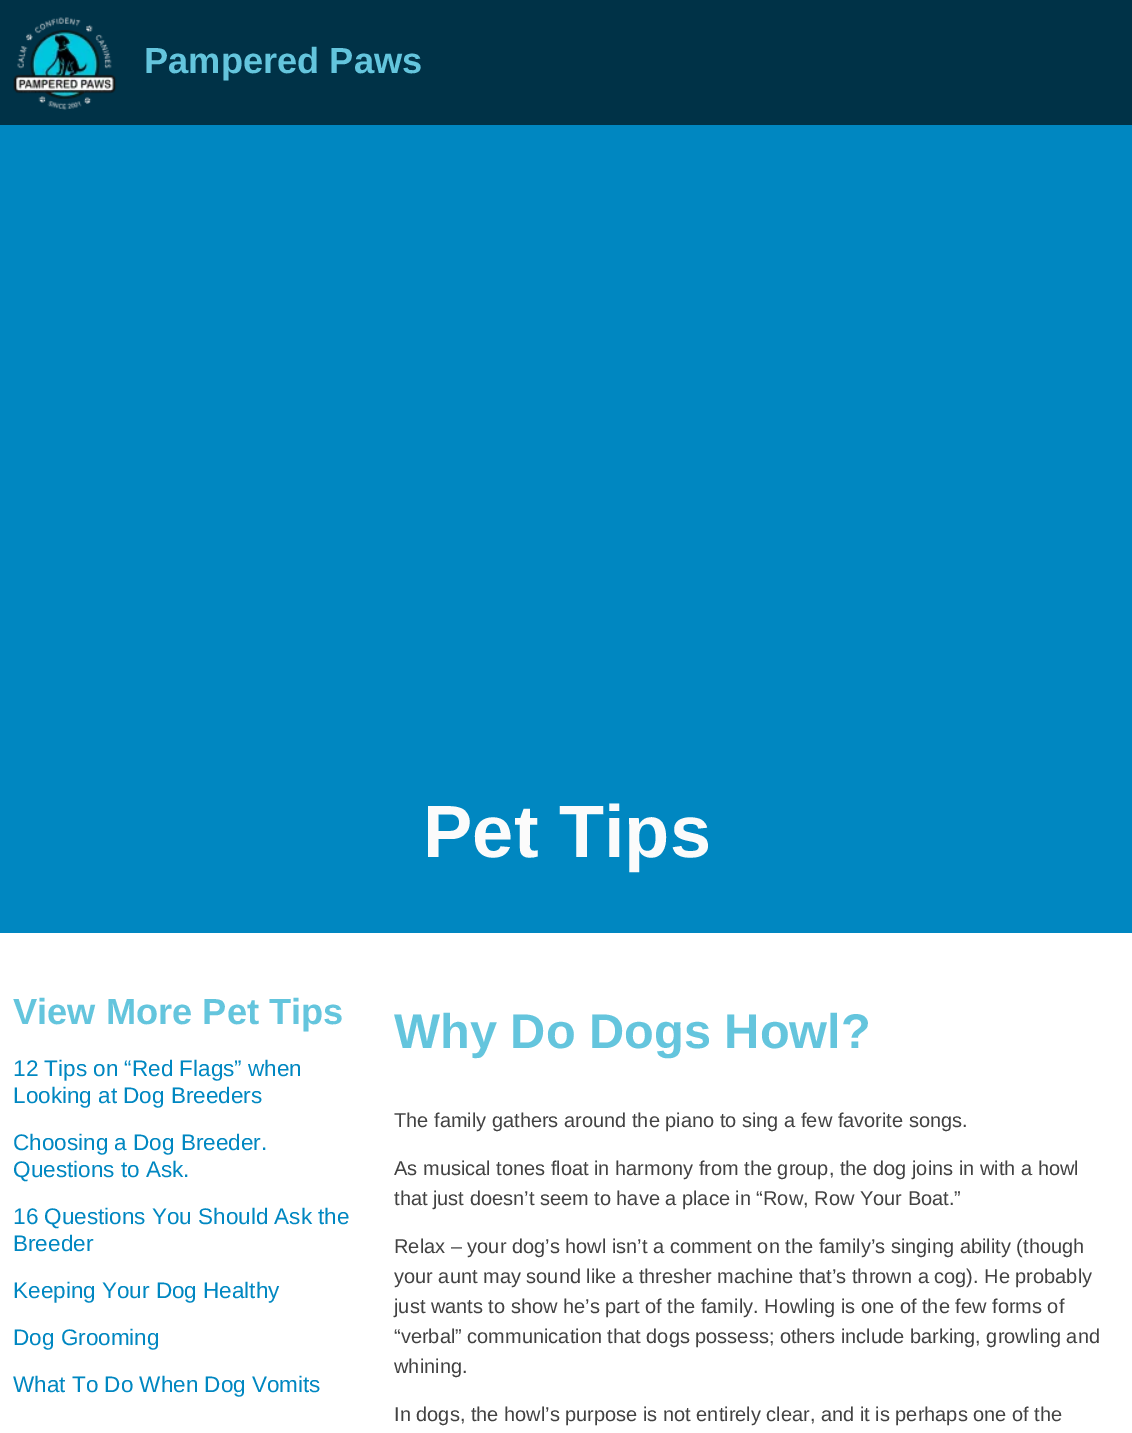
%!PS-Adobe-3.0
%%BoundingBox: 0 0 1132 1433
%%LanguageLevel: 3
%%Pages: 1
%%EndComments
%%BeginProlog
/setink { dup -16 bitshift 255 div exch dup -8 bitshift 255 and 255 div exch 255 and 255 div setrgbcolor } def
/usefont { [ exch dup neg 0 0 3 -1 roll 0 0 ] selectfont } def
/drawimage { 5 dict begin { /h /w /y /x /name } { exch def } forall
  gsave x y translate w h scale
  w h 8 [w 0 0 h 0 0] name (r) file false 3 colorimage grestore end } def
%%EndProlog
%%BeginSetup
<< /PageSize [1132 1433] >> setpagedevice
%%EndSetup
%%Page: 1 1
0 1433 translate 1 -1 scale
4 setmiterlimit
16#FFFFFF setink
0 0 1132 1433 rectfill
16#003247 setink
0 0 1132 125 rectfill
(img1.raw) 13 17 104 93 drawimage
/LiberationSans-Bold 36.25 usefont
16#64C5DD setink
144 73 moveto (Pampered Paws) show
16#0087C1 setink
0 125 1132 808 rectfill
/LiberationSans-Bold 74 usefont
16#FBFBFB setink
423 857 moveto (Pet Tips) show
/LiberationSans-Bold 36.25 usefont
16#64C5DD setink
13 1024 moveto (View More Pet Tips) show
/LiberationSans-Regular 22.5 usefont
16#0087C1 setink
[
    [(12 Tips on “Red Flags” when) 13 1076]
    [(Looking at Dog Breeders) 13 1103]
    [(Choosing a Dog Breeder.) 13 1150]
    [(Questions to Ask.) 13 1177]
    [(16 Questions You Should Ask the) 13 1224]
    [(Breeder) 13 1251]
    [(Keeping Your Dog Healthy) 13 1298]
    [(Dog Grooming) 13 1345]
    [(What To Do When Dog Vomits) 13 1392]
] { aload pop moveto show } forall
/LiberationSans-Bold 48.75 usefont
16#64C5DD setink
394 1048 moveto (Why Do Dogs Howl?) show
/LiberationSans-Regular 20 usefont
16#424242 setink
[
    [(The family gathers around the piano to sing a few favorite songs.) 394 1127]
    [(As musical tones float in harmony from the group, the dog joins in with a howl) 394 1175]
    [(that just doesn’t seem to have a place in “Row, Row Your Boat.”) 394 1205]
    [(Relax – your dog’s howl isn’t a comment on the family’s singing ability \(though) 394 1253]
    [(your aunt may sound like a thresher machine that’s thrown a cog\). He probably) 394 1283]
    [(just wants to show he’s part of the family. Howling is one of the few forms of) 394 1313]
    [(“verbal” communication that dogs possess; others include barking, growling and) 394 1343]
    [(whining.) 394 1373]
    [(In dogs, the howl’s purpose is not entirely clear, and it is perhaps one of the) 394 1421]
] { aload pop moveto show } forall
showpage
%%EOF
